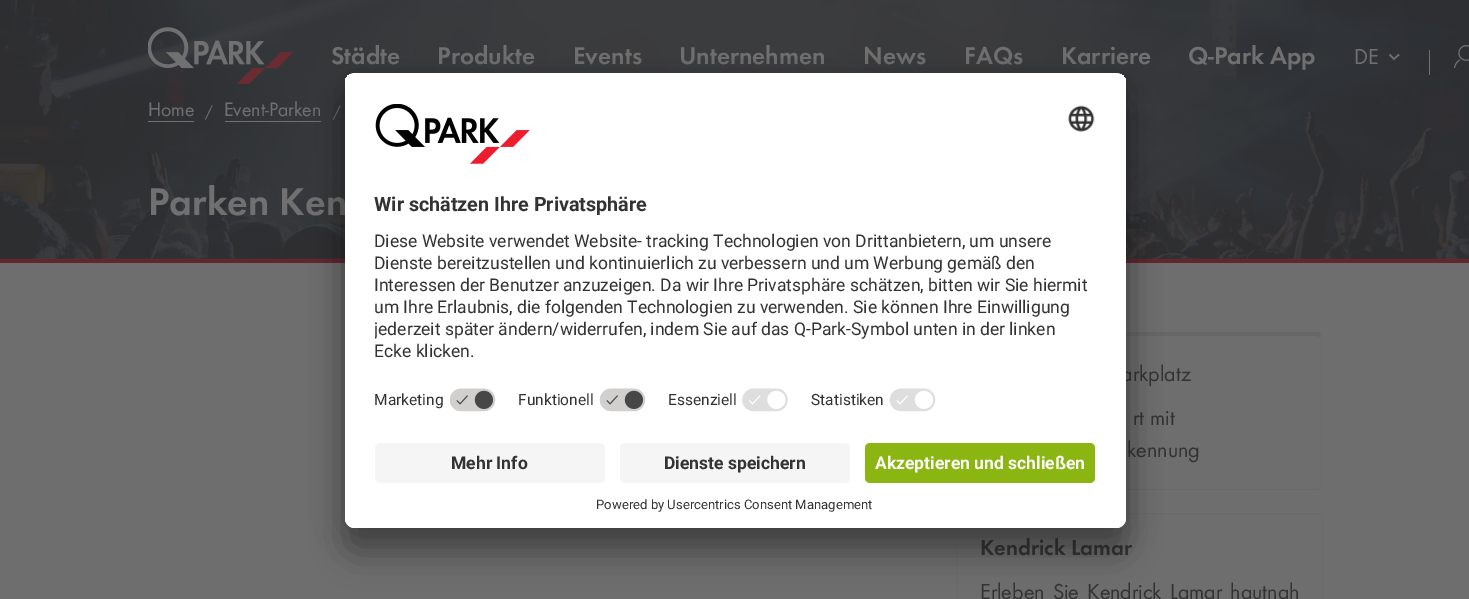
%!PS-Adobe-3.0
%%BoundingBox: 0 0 1469 599
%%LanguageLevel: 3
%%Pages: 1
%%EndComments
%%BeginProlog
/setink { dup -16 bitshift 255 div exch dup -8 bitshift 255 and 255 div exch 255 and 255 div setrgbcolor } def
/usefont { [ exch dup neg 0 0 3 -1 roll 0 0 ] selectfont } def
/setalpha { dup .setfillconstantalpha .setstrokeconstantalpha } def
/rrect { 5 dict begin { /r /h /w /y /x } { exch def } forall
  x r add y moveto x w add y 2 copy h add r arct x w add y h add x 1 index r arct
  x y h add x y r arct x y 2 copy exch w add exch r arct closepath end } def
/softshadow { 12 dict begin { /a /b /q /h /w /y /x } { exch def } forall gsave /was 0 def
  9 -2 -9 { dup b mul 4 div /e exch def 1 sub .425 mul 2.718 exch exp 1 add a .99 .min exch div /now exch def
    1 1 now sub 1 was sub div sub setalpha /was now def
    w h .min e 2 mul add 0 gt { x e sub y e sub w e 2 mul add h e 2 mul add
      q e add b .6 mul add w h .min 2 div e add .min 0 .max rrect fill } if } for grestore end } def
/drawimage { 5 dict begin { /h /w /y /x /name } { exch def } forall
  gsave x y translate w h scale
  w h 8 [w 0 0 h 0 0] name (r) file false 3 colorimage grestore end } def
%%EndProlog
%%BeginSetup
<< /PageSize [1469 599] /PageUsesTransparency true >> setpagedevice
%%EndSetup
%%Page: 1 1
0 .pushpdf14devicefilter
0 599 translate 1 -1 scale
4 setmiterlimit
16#6E6E6E setink
0 0 1469 599 rectfill
(img3.raw) 0 0 1469 259 drawimage
(img1.raw) 148 27 146 57 drawimage
/Futura-Regular 25.25 usefont
16#707070 setink
[
    [(Städte) 331 64]
    [(Produkte) 437 64]
    [(Events) 573 64]
    [(Unternehmen) 679 64]
    [(News) 863 64]
    [(FAQs) 964 64]
    [(Karriere) 1061 64]
    [(Q-Park App) 1188 64]
] { aload pop moveto show } forall
/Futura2-Regular 22.5 usefont
1354 64 moveto (DE) show
1.5 setlinewidth
1389.5 54.5 moveto 1394 59 lineto 1399 54.5 lineto stroke
1429 50 1 25 rectfill
(img2.raw) 1454 45 15 23 drawimage
16#65252F setink
0 259 1469 4 rectfill
/Futura2-Regular 20.25 usefont
16#707070 setink
148 116 moveto (Home) show
148 121 46 1 rectfill
/Futura2-Regular 16 usefont
205 117 moveto (/) show
/Futura2-Regular 20.25 usefont
224 116 moveto (Event-Parken) show
225 121 96 1 rectfill
/Futura2-Regular 16 usefont
333 117 moveto (/) show
/Futura-Regular 40 usefont
148 215 moveto (Parken Ken) show
16#676767 setink
962 336 moveto 960 336 959 337 958 338 curveto 957 335 lineto 958 334 959 333 960 332 curveto 1319 332 lineto 1320 333 1321 334 1321 336 curveto 1321 338 lineto 1320 337 1318 336 1316 336 curveto closepath fill
16#6A6A6A setink
1321 336 moveto 1322 339 lineto 1322 485 lineto 1321 488 lineto 1320 487 lineto 1321 484 lineto 1321 338 lineto closepath fill
0.08 setalpha
16#242424 setink
962 490 moveto 1317 490 lineto 1321 488 lineto 1320 487 lineto 1319 488 1318 489 1316 489 curveto 962 489 lineto 961 489 960 488 959 487 curveto 958 488 lineto 959 489 961 490 962 490 curveto closepath fill
/Futura2-Regular 22.5 usefont
1 setalpha
16#333333 setink
[
    [(arkplatz) 1121 381]
    [(rt mit) 1133 425]
    [(kennung) 1127 457]
] { aload pop moveto show } forall
16#6A6A6A setink
1 setlinewidth
956.5 513.5 366 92 5.5 rrect stroke
/Futura-Regular 22.5 usefont
16#333333 setink
980 555 moveto (Kendrick Lamar) show
/Futura2-Regular 22.5 usefont
980 599 moveto 2.5 0 32 (Erleben Sie Kendrick Lamar hautnah) widthshow
16#000000 setink
345 98 781 455 10 17.5 0.3 softshadow
345 79 781 455 10 16 0.22 softshadow
16#FFFFFF setink
345 73 781 455 10 rrect fill
gsave
345 73 781 455 10 rrect clip newpath
355 73 moveto 1116 73 lineto 1121.5 73 1126 77.5 1126 83 curveto 1126 433 lineto 345 433 lineto 345 83 lineto 345 77.5 349.5 73 355 73 curveto closepath clip newpath
345 74 781 359 rectfill
345 74 781 309 rectfill
grestore
(img4.raw) 375 104 155 60 drawimage
(img5.raw) 1068 105 27 27 drawimage
/Roboto-Bold 19.75 usefont
16#333333 setink
374 211 moveto (Wir schätzen Ihre Privatsphäre) show
/Roboto-Regular 17.5 usefont
[
    [(Diese Website verwendet Website- tracking Technologien von Drittanbietern, um unsere) 374 247]
    [(Dienste bereitzustellen und kontinuierlich zu verbessern und um Werbung gemäß den) 374 269]
    [(Interessen der Benutzer anzuzeigen. Da wir Ihre Privatsphäre schätzen, bitten wir Sie hiermit) 374 291]
    [(um Ihre Erlaubnis, die folgenden Technologien zu verwenden. Sie können Ihre Einwilligung) 374 313]
] { aload pop moveto show } forall
gsave
375 226 721 142 rectclip
374 335 moveto (jederzeit später ändern/widerrufen, indem Sie auf das Q-Park-Symbol unten in der linken) show
grestore
374 357 moveto (Ecke klicken.) show
/Roboto-Regular 15.5 usefont
374 405 moveto (Marketing) show
(img6.raw) 449 388 47 24 drawimage
518 405 moveto (Funktionell) show
(img6.raw) 599 388 47 24 drawimage
668 405 moveto (Essenziell) show
(img7.raw) 742 388 46 24 drawimage
811 405 moveto (Statistiken) show
(img8.raw) 889 388 47 24 drawimage
16#FFFFFF setink
345 433 moveto 1126 433 lineto 1126 518 lineto 1126 523.5 1121.5 528 1116 528 curveto 355 528 lineto 349.5 528 345 523.5 345 518 curveto closepath fill
16#F5F5F5 setink
375 443 230 40 5 rrect fill
/Roboto-Bold 17.5 usefont
16#333333 setink
451 469 moveto (Mehr Info) show
16#F5F5F5 setink
620 443 230 40 5 rrect fill
16#333333 setink
664 469 moveto (Dienste speichern) show
16#8BB611 setink
865 443 230 40 5 rrect fill
16#FAFAFA setink
875 469 moveto (Akzeptieren und schließen) show
/Roboto-Regular 13.1 usefont
16#333333 setink
596 509 moveto (Powered by Usercentrics Consent Management) show
.poppdf14devicefilter showpage
%%EOF
